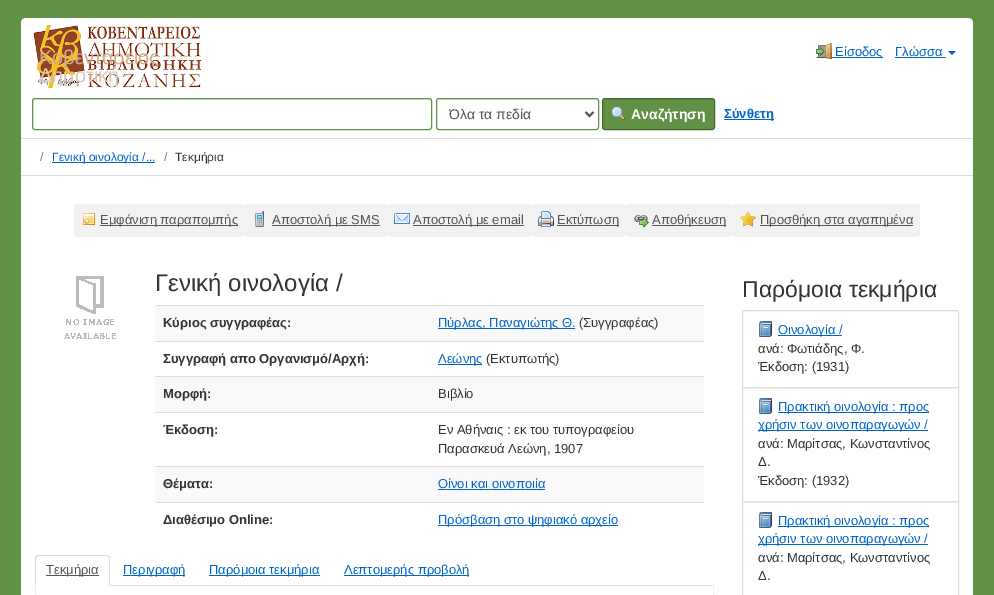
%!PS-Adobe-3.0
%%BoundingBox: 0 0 994 595
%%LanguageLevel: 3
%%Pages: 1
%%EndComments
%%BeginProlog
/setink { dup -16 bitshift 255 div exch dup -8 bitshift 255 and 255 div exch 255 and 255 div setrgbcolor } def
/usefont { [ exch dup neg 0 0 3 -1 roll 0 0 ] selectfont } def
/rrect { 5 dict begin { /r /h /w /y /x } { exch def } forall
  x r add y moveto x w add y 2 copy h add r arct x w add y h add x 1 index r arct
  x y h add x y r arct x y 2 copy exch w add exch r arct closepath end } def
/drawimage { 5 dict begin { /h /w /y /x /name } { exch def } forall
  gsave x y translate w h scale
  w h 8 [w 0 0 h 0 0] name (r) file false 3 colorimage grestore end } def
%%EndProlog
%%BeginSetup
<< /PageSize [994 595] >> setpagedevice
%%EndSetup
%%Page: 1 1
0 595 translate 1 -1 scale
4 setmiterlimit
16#619144 setink
0 0 994 595 rectfill
16#FFFFFF setink
26 18 moveto 968 18 lineto 971 18 973 20 973 23 curveto 973 90 lineto 21 90 lineto 21 23 lineto 21 20 23 18 26 18 curveto closepath fill
(img1.raw) 33 25 169 64 drawimage
/LiberationSans-Regular 20 usefont
16#D2AC8C setink
39 64 moveto (Κοβεντάρειος) show
16#DCC7B5 setink
39 82 moveto (Δημοτική) show
(img2.raw) 816 43 16 16 drawimage
16#0066CC setink
832 57 51 1 rectfill
/LiberationSans-Regular 13 usefont
835 56 moveto (Είσοδος) show
895 56 moveto (Γλώσσα) show
895 57 51 1 rectfill
948 51 moveto 956 51 lineto 952 55 lineto closepath fill
16#FFFFFF setink
21 90 952 48 rectfill
16#ECECEC setink
35 100 moveto 429 100 lineto 430 100 431 101 431 102 curveto 431 101 431 99 429 99 curveto 35 99 lineto 33 100 lineto 33 102 lineto 33 101 34 100 35 100 curveto closepath fill
16#619144 setink
32.5 98.5 399 31 2.5 rrect stroke
16#ECECEC setink
439 100 moveto 596 100 lineto 597 100 598 101 598 102 curveto 598 101 598 99 596 99 curveto 439 99 lineto 437 99 437 101 437 102 curveto 437 101 438 100 439 100 curveto closepath fill
16#619144 setink
436.5 98.5 162 31 2.5 rrect stroke
16#555555 setink
2 setlinewidth
585.5 112 moveto 589.5 116 lineto 593.5 112 lineto stroke
gsave
449 105 125 18 rectclip
/LiberationSans-Regular 14 usefont
449 119 moveto (Όλα τα πεδία) show
grestore
16#619144 setink
602.5 98.5 112 31 2.5 rrect gsave fill grestore
16#456730 setink
1 setlinewidth
stroke
(img3.raw) 612 107 13 14 drawimage
/LiberationSans-Bold 14 usefont
16#FFFFFF setink
631 119 moveto (Αναζήτηση) show
16#0066CC setink
724 119 50 1 rectfill
/LiberationSans-Bold 13 usefont
724 118 moveto (Σύνθετη) show
[
    [21 139 952 36 16#FFFFFF]
    [21 138 952 1 16#DDDDDD]
    [21 175 952 1 16#DDDDDD]
] { aload pop setink rectfill } forall
/LiberationSans-Regular 12 usefont
16#777777 setink
40 161 moveto (/) show
16#0066CC setink
52 162 103 1 rectfill
52 161 moveto (Γενική οινολογία /...) show
16#777777 setink
164 161 moveto (/) show
16#333333 setink
175 161 moveto (Τεκμήρια) show
16#FFFFFF setink
21 176 952 419 rectfill
16#F2F2F2 setink
74 204 171 33 4 rrect fill
(img4.raw) 83 213 12 12 drawimage
16#555555 setink
100 225 138 1 rectfill
/LiberationSans-Regular 13 usefont
100 224 moveto (Εμφάνιση παραπομπής) show
16#F2F2F2 setink
245 204 142 33 4 rrect fill
(img5.raw) 255 211 9 16 drawimage
16#555555 setink
272 225 108 1 rectfill
272 224 moveto (Αποστολή με SMS) show
16#F2F2F2 setink
387 204 144 33 4 rrect fill
(img6.raw) 394 213 16 11 drawimage
16#555555 setink
413 225 111 1 rectfill
413 224 moveto (Αποστολή με email) show
16#F2F2F2 setink
531 204 95 33 4 rrect fill
(img7.raw) 538 211 16 16 drawimage
16#555555 setink
557 225 62 1 rectfill
557 224 moveto (Εκτύπωση) show
16#F2F2F2 setink
626 204 107 33 4 rrect fill
(img8.raw) 634 215 15 12 drawimage
16#555555 setink
652 225 74 1 rectfill
652 224 moveto (Αποθήκευση) show
16#F2F2F2 setink
733 204 187 33 4 rrect fill
(img9.raw) 740 211 16 16 drawimage
16#555555 setink
760 225 153 1 rectfill
760 224 moveto (Προσθήκη στα αγαπημένα) show
(img10.raw) 64 276 52 63 drawimage
/LiberationSans-Regular 24 usefont
16#333333 setink
155 291 moveto (Γενική οινολογία /) show
16#F9F9F9 setink
155 306 549 35 rectfill
/LiberationSans-Bold 13 usefont
16#333333 setink
163 327 moveto (Κύριος συγγραφέας:) show
16#DDDDDD setink
155 305 549 1 rectfill
16#0066CC setink
438 328 137 1 rectfill
/LiberationSans-Regular 13 usefont
438 327 moveto (Πύρλας, Παναγιώτης Θ.) show
16#333333 setink
579 327 moveto (\(Συγγραφέας\)) show
/LiberationSans-Bold 13 usefont
163 363 moveto (Συγγραφή απο Οργανισμό/Αρχή:) show
16#DDDDDD setink
155 341 549 1 rectfill
16#0066CC setink
438 364 44 1 rectfill
/LiberationSans-Regular 13 usefont
438 363 moveto (Λεώνης) show
16#333333 setink
486 363 moveto (\(Εκτυπωτής\)) show
16#F9F9F9 setink
155 377 549 35 rectfill
/LiberationSans-Bold 13 usefont
16#333333 setink
163 398 moveto (Μορφή:) show
16#DDDDDD setink
155 376 549 1 rectfill
/LiberationSans-Regular 13 usefont
16#333333 setink
438 398 moveto (Βιβλίο) show
/LiberationSans-Bold 13 usefont
163 434 moveto (Έκδοση:) show
16#DDDDDD setink
155 412 549 1 rectfill
/LiberationSans-Regular 13 usefont
16#333333 setink
438 434 moveto (Εν Αθήναις : εκ του τυπογραφείου) show
438 453 moveto (Παρασκευά Λεώνη, 1907) show
16#F9F9F9 setink
155 467 549 35 rectfill
/LiberationSans-Bold 13 usefont
16#333333 setink
163 488 moveto (Θέματα:) show
16#DDDDDD setink
155 466 549 1 rectfill
/LiberationSans-Regular 13 usefont
16#0066CC setink
438 488 moveto (Οίνοι και οινοποιία) show
438 489 107 1 rectfill
/LiberationSans-Bold 13 usefont
16#333333 setink
163 524 moveto (Διαθέσιμο Online:) show
16#DDDDDD setink
155 502 549 1 rectfill
16#0066CC setink
438 525 180 1 rectfill
/LiberationSans-Regular 13 usefont
438 524 moveto (Πρόσβαση στο ψηφιακό αρχείο) show
16#DDDDDD setink
110 585 604 1 rectfill
38 555 moveto 36 556 lineto 37 557 lineto 38 556 lineto 107 556 lineto 108 557 lineto 109 556 lineto 107 555 lineto closepath fill
110 586 moveto 110 558 lineto 110 557 110 556 109 556 curveto 108.5 556.5 lineto 109 558 lineto 109 585 lineto closepath fill
35 586 moveto 36 585 lineto 36 558 lineto 36.5 556.5 lineto 36 556 lineto 35 556 35 557 35 558 curveto closepath fill
16#555555 setink
46 575 53 1 rectfill
46 574 moveto (Τεκμήρια) show
16#0066CC setink
123 575 62 1 rectfill
123 574 moveto (Περιγραφή) show
209 575 111 1 rectfill
209 574 moveto (Παρόμοια τεκμήρια) show
344 575 125 1 rectfill
344 574 moveto (Λεπτομερής προβολή) show
16#EEEEEE setink
713 586 1 9 rectfill
35 586 1 9 rectfill
/LiberationSans-Regular 23 usefont
16#333333 setink
742 297 moveto (Παρόμοια τεκμήρια) show
16#DDDDDD setink
745 310.5 moveto 956 310.5 lineto 957.5 310.5 958.5 311.5 958.5 313 curveto 958.5 387.5 lineto 742.5 387.5 lineto 742.5 313 lineto 742.5 311.5 743.5 310.5 745 310.5 curveto closepath stroke
(img11.raw) 759 321 13 16 drawimage
16#0066CC setink
778 335 64 1 rectfill
/LiberationSans-Regular 13 usefont
778 334 moveto (Οινολογία /) show
16#333333 setink
758 353 moveto (ανά: Φωτιάδης, Φ.) show
758 371 moveto (Έκδοση: \(1931\)) show
16#DDDDDD setink
742.5 387.5 216 114 rectstroke
(img11.raw) 759 398 13 16 drawimage
16#0066CC setink
778 412 151 1 rectfill
778 411 moveto (Πρακτική οινολογία : προς) show
758 430 170 1 rectfill
758 429 moveto (χρήσιν των οινοπαραγωγών /) show
16#333333 setink
[
    [(ανά: Μαρίτσας, Κωνσταντίνος) 758 448]
    [(Δ.) 758 466]
    [(Έκδοση: \(1932\)) 758 485]
] { aload pop moveto show } forall
16#DDDDDD setink
742.5 501.5 216 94 rectstroke
(img11.raw) 759 512 13 16 drawimage
16#0066CC setink
778 526 151 1 rectfill
778 525 moveto (Πρακτική οινολογία : προς) show
758 544 170 1 rectfill
758 543 moveto (χρήσιν των οινοπαραγωγών /) show
16#333333 setink
758 562 moveto (ανά: Μαρίτσας, Κωνσταντίνος) show
758 580 moveto (Δ.) show
showpage
%%EOF
